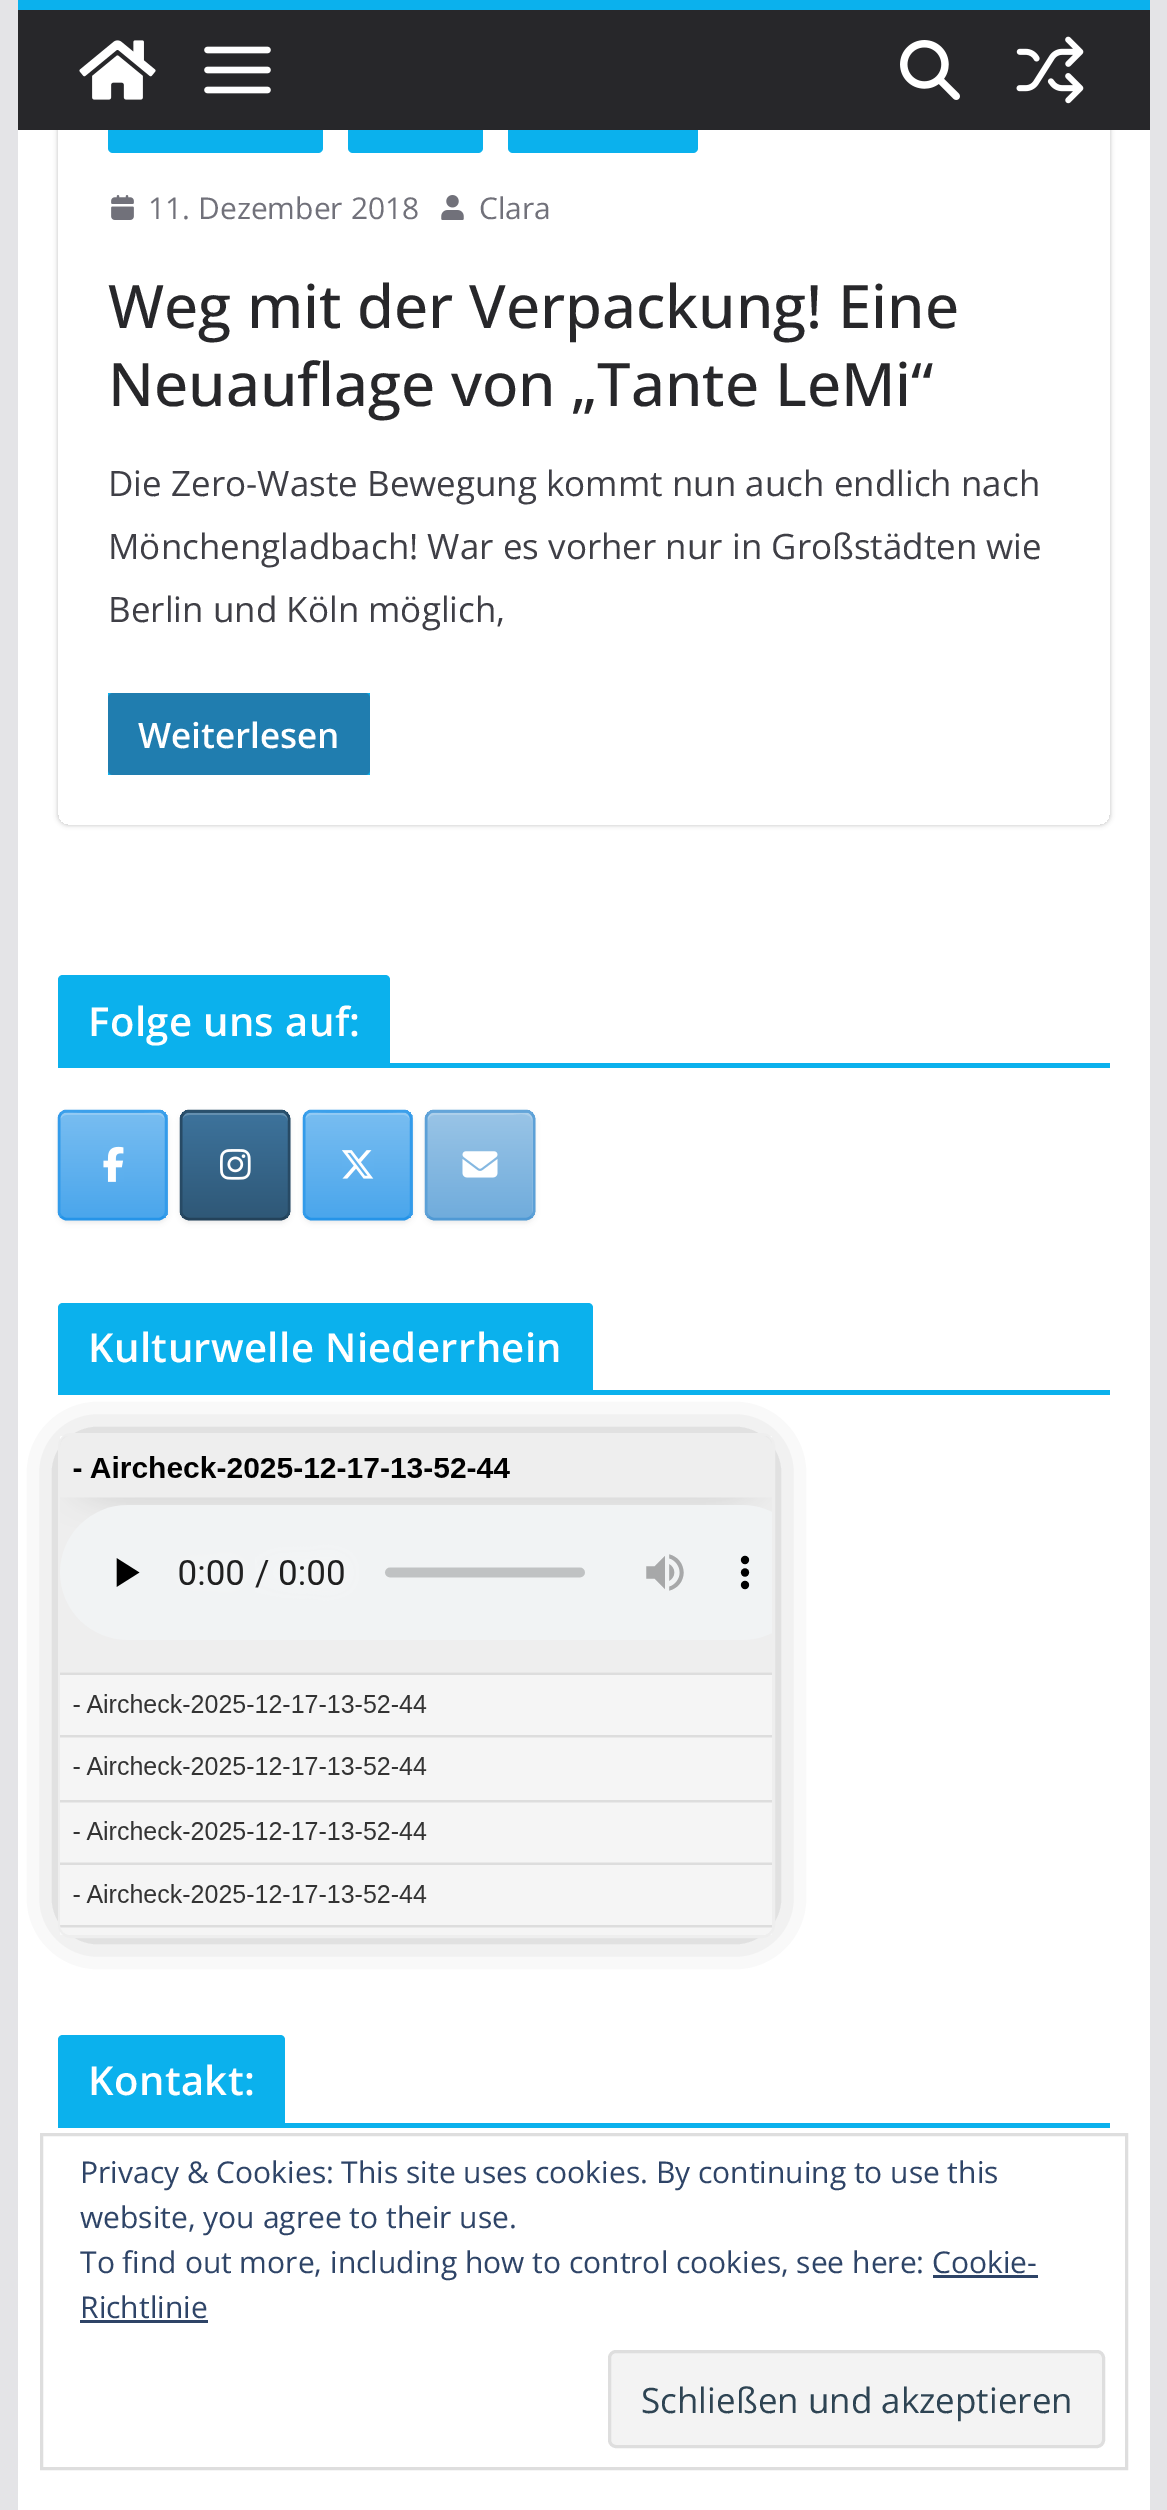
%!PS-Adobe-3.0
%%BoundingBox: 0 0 1167 2510
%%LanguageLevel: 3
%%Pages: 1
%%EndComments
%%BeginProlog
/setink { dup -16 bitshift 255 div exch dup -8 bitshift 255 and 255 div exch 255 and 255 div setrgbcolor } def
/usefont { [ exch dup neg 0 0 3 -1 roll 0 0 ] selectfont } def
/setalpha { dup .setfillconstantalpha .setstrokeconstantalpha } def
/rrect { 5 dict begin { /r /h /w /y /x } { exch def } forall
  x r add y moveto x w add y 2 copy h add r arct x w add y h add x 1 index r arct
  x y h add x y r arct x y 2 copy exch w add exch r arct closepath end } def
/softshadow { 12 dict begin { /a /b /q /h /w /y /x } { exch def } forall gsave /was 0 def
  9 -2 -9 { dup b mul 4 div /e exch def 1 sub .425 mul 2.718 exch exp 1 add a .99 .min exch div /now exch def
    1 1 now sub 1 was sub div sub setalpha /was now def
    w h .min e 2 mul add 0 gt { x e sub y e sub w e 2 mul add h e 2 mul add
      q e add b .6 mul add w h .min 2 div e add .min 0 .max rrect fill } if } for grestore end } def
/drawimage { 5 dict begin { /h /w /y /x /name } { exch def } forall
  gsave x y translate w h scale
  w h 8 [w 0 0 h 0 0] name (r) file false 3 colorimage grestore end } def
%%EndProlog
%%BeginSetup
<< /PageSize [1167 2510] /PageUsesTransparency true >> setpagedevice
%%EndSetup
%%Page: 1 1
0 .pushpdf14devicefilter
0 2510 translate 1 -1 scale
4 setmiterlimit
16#E4E4E7 setink
0 0 1167 2510 rectfill
16#FFFFFF setink
18 130 1132 2380 rectfill
gsave
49 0 moveto 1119 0 lineto 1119 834 lineto 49 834 lineto closepath 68 -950 moveto 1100 -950 lineto 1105.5 -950 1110 -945.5 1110 -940 curveto 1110 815 lineto 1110 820.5 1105.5 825 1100 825 curveto 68 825 lineto 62.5 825 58 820.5 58 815 curveto 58 -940 lineto 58 -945.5 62.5 -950 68 -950 curveto closepath eoclip newpath
16#000000 setink
58 -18 1052 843 10 2.5 0.24 softshadow
grestore
16#0BB1ED setink
108 88 215 65 5 rrect fill
348 88 135 65 5 rrect fill
508 88 190 65 5 rrect fill
16#27272A setink
18 10 1132 120 rectfill
16#0BB1ED setink
18 0 1132 10 rectfill
(img1.raw) 79 40 77 60 drawimage
(img2.raw) 204 46 67 48 drawimage
(img3.raw) 900 40 60 60 drawimage
(img4.raw) 1016 36 68 68 drawimage
(img5.raw) 111 195 23 25 drawimage
/OpenSans-Regular 30 usefont
16#71717A setink
148 219 moveto (11. Dezember 2018) show
(img6.raw) 441 195 23 25 drawimage
479 219 moveto (Clara) show
/OpenSans-Medium 60 usefont
16#27272A setink
108 328 moveto (Weg mit der Verpackung! Eine) show
108 406 moveto (Neuauflage von „Tante LeMi“) show
/OpenSans-Regular 35 usefont
16#3F3F46 setink
[
    [(Die Zero-Waste Bewegung kommt nun auch endlich nach) 108 496]
    [(Mönchengladbach! War es vorher nur in Großstädten wie) 108 559]
    [(Berlin und Köln möglich,) 108 622]
] { aload pop moveto show } forall
16#0BB1ED setink
108 693 262 82 rectfill
16#207DAF setink
108 693 262 82 5 rrect fill
/OpenSans-SemiBold 35 usefont
16#FFFFFF setink
138 748 moveto (Weiterlesen) show
16#0BB1ED setink
58 1063 1052 5 rectfill
63 975 moveto 385 975 lineto 388 975 390 977 390 980 curveto 390 1063 lineto 58 1063 lineto 58 980 lineto 58 977 60 975 63 975 curveto closepath fill
/OpenSans-SemiBold 40 usefont
16#FFFFFF setink
88 1036 moveto 0.4 0 (Folge uns auf:) ashow
16#000000 setink
58 1113 110 110 10 2.5 0.07 softshadow
gsave
58 1110 110 110 10 rrect clip newpath
gsave 58 1110 moveto 168 1110 lineto 168 1113 lineto 58 1113 lineto closepath clip newpath
<< /ShadingType 2 /ColorSpace /DeviceRGB /Coords [60 1113 60 1008] /Extend [true true] /Function << /FunctionType 2 /Domain [0 1] /C0 [0.29 0.651 0.925] /C1 [0.471 0.741 0.945] /N 1 >> >> shfill grestore
gsave 58 1113 moveto 168 1113 lineto 168 1218 lineto 58 1218 lineto closepath clip newpath
<< /ShadingType 2 /ColorSpace /DeviceRGB /Coords [60 1218 60 1113] /Extend [true true] /Function << /FunctionType 2 /Domain [0 1] /C0 [0.29 0.651 0.925] /C1 [0.471 0.741 0.945] /N 1 >> >> shfill grestore
grestore
0.2 setalpha
16#FFFFFF setink
66 1115 moveto 159 1115 lineto 162 1115 165 1118 165 1121 curveto 165 1109 153 1113 144 1113 curveto 82 1113 lineto 72 1113 60 1109 60 1121 curveto 60 1118 63 1115 66 1115 curveto closepath fill
1 setalpha
16#3CA0EB setink
2.5 setlinewidth
61 1113.5 moveto 62.5 1112 64.5 1111 66 1111 curveto 159 1111 lineto 160.5 1111 162.5 1112 164 1113.5 curveto stroke
16#339BEA setink
164 1113.5 moveto 165.5 1115 166 1117 166 1119 curveto 166 1211 lineto 166 1213 165.5 1215 164 1216.5 curveto stroke
16#2594E8 setink
164 1216.5 moveto 162.5 1218 160.5 1219 159 1219 curveto 66 1219 lineto 64.5 1219 62.5 1218 61 1216.5 curveto stroke
16#339BEA setink
61 1216.5 moveto 59.5 1215 59 1213 59 1211 curveto 59 1119 lineto 59 1117 59.5 1115 61 1113.5 curveto stroke
(img7.raw) 103 1146 21 36 drawimage
16#000000 setink
180 1113 110 110 10 2.5 0.07 softshadow
gsave
180 1110 110 110 10 rrect clip newpath
gsave 180 1110 moveto 290 1110 lineto 290 1113 lineto 180 1113 lineto closepath clip newpath
<< /ShadingType 2 /ColorSpace /DeviceRGB /Coords [183 1113 183 1008] /Extend [true true] /Function << /FunctionType 2 /Domain [0 1] /C0 [0.184 0.345 0.467] /C1 [0.239 0.451 0.612] /N 1 >> >> shfill grestore
gsave 180 1113 moveto 290 1113 lineto 290 1218 lineto 180 1218 lineto closepath clip newpath
<< /ShadingType 2 /ColorSpace /DeviceRGB /Coords [183 1218 183 1113] /Extend [true true] /Function << /FunctionType 2 /Domain [0 1] /C0 [0.184 0.345 0.467] /C1 [0.239 0.451 0.612] /N 1 >> >> shfill grestore
grestore
16#648FAF setink
189 1115 moveto 281 1115 lineto 285 1115 288 1118 288 1121 curveto 288 1119 lineto 288 1116 285 1113 282 1113 curveto 189 1113 lineto 186 1113 184 1115 183 1118 curveto 184 1116 186 1115 189 1115 curveto closepath fill
16#2A506C setink
183.5 1113.5 moveto 185 1112 187 1111 189 1111 curveto 281 1111 lineto 283 1111 285 1112 286.5 1113.5 curveto stroke
16#274A65 setink
286.5 1113.5 moveto 288 1115 289 1117 289 1119 curveto 289 1211 lineto 289 1213 288 1215 286.5 1216.5 curveto stroke
16#23425A setink
286.5 1216.5 moveto 285 1218 283 1219 281 1219 curveto 189 1219 lineto 187 1219 185 1218 183.5 1216.5 curveto stroke
16#274A65 setink
183.5 1216.5 moveto 182 1215 181 1213 181 1211 curveto 181 1119 lineto 181 1117 182 1115 183.5 1113.5 curveto stroke
(img8.raw) 220 1149 31 31 drawimage
16#000000 setink
303 1113 110 110 10 2.5 0.07 softshadow
gsave
303 1110 110 110 10 rrect clip newpath
gsave 303 1110 moveto 413 1110 lineto 413 1113 lineto 303 1113 lineto closepath clip newpath
<< /ShadingType 2 /ColorSpace /DeviceRGB /Coords [305 1113 305 1008] /Extend [true true] /Function << /FunctionType 2 /Domain [0 1] /C0 [0.29 0.651 0.925] /C1 [0.471 0.741 0.945] /N 1 >> >> shfill grestore
gsave 303 1113 moveto 413 1113 lineto 413 1218 lineto 303 1218 lineto closepath clip newpath
<< /ShadingType 2 /ColorSpace /DeviceRGB /Coords [305 1218 305 1113] /Extend [true true] /Function << /FunctionType 2 /Domain [0 1] /C0 [0.29 0.651 0.925] /C1 [0.471 0.741 0.945] /N 1 >> >> shfill grestore
grestore
0.2 setalpha
16#FFFFFF setink
311 1115 moveto 404 1115 lineto 407 1115 410 1118 410 1121 curveto 410 1109 398 1113 388 1113 curveto 326 1113 lineto 317 1113 305 1109 305 1121 curveto 305 1118 308 1115 311 1115 curveto closepath fill
1 setalpha
16#3CA0EB setink
306 1113.5 moveto 307.5 1112 309.5 1111 311 1111 curveto 404 1111 lineto 405.5 1111 407.5 1112 409 1113.5 curveto stroke
16#339BEA setink
409 1113.5 moveto 410.5 1115 411 1117 411 1119 curveto 411 1211 lineto 411 1213 410.5 1215 409 1216.5 curveto stroke
16#2594E8 setink
409 1216.5 moveto 407.5 1218 405.5 1219 404 1219 curveto 311 1219 lineto 309.5 1219 307.5 1218 306 1216.5 curveto stroke
16#339BEA setink
306 1216.5 moveto 304.5 1215 304 1213 304 1211 curveto 304 1119 lineto 304 1117 304.5 1115 306 1113.5 curveto stroke
(img9.raw) 342 1150 32 29 drawimage
16#000000 setink
425 1113 110 110 10 2.5 0.07 softshadow
gsave
425 1110 110 110 10 rrect clip newpath
gsave 425 1110 moveto 535 1110 lineto 535 1113 lineto 425 1113 lineto closepath clip newpath
<< /ShadingType 2 /ColorSpace /DeviceRGB /Coords [428 1113 428 1008] /Extend [true true] /Function << /FunctionType 2 /Domain [0 1] /C0 [0.439 0.675 0.863] /C1 [0.6 0.769 0.902] /N 1 >> >> shfill grestore
gsave 425 1113 moveto 535 1113 lineto 535 1218 lineto 425 1218 lineto closepath clip newpath
<< /ShadingType 2 /ColorSpace /DeviceRGB /Coords [428 1218 428 1113] /Extend [true true] /Function << /FunctionType 2 /Domain [0 1] /C0 [0.439 0.675 0.863] /C1 [0.6 0.769 0.902] /N 1 >> >> shfill grestore
grestore
0.2 setalpha
16#FFFFFF setink
434 1115 moveto 511 1115 lineto 514 1115 532 1111 532 1121 curveto 532 1216 lineto 533 1215 533 1213 533 1212 curveto 533 1119 lineto 533 1116 530 1113 527 1113 curveto 434 1113 lineto 431 1113 428 1116 428 1119 curveto 428 1121 lineto 428 1118 430 1115 434 1115 curveto closepath fill
1 setalpha
16#64A5D9 setink
428.5 1113.5 moveto 430 1112 432 1111 434 1111 curveto 526 1111 lineto 528 1111 530 1112 531.5 1113.5 curveto stroke
16#5CA0D7 setink
531.5 1113.5 moveto 533 1115 534 1117 534 1119 curveto 534 1211 lineto 534 1213 533 1215 531.5 1216.5 curveto stroke
16#4F99D4 setink
531.5 1216.5 moveto 530 1218 528 1219 526 1219 curveto 434 1219 lineto 432 1219 430 1218 428.5 1216.5 curveto stroke
16#5CA0D7 setink
428.5 1216.5 moveto 427 1215 426 1213 426 1211 curveto 426 1119 lineto 426 1117 427 1115 428.5 1113.5 curveto stroke
(img10.raw) 462 1151 36 27 drawimage
16#0BB1ED setink
58 1390 1052 5 rectfill
63 1303 moveto 588 1303 lineto 591 1303 593 1305 593 1308 curveto 593 1390 lineto 58 1390 lineto 58 1308 lineto 58 1305 60 1303 63 1303 curveto closepath fill
16#FFFFFF setink
88 1362 moveto 0.4 0 (Kulturwelle Niederrhein) ashow
16#000000 setink
83 1458 667 455 0 25 0.75 softshadow
16#EEEEEE setink
3 setlinewidth
59.5 1434.5 714 502 11.5 rrect stroke
(img11.raw) 60 1436 712 499 drawimage
16#0BB1ED setink
58 2123 1052 5 rectfill
63 2035 moveto 280 2035 lineto 283 2035 285 2037 285 2040 curveto 285 2123 lineto 58 2123 lineto 58 2040 lineto 58 2037 60 2035 63 2035 curveto closepath fill
16#FFFFFF setink
88 2095 moveto 0.4 0 (Kontakt:) ashow
16#DEDEDE setink
41.5 2134.5 1085 334 rectstroke
/OpenSans-Regular 30 usefont
16#2E4467 setink
[
    [(Privacy & Cookies: This site uses cookies. By continuing to use this) 80 2183]
    [(website, you agree to their use.) 80 2228]
    [(To find out more, including how to control cookies, see here: Cookie-) 80 2273]
    [(Richtlinie) 80 2318]
] { aload pop moveto show } forall
933 2275 105 3 rectfill
80 2320 128 3 rectfill
16#F3F3F3 setink
609.5 2351.5 494 95 6.5 rrect gsave fill grestore
16#DEDEDE setink
stroke
/OpenSans-Regular 35 usefont
16#2E4453 setink
641 2413 moveto (Schließen und akzeptieren) show
.poppdf14devicefilter showpage
%%EOF
